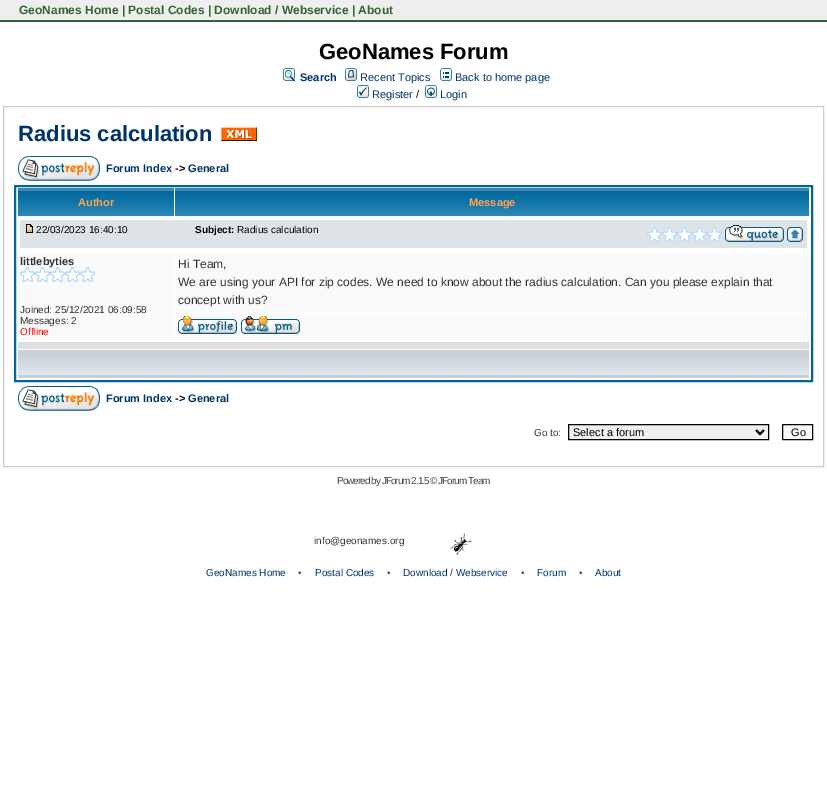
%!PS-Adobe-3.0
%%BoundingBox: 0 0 827 797
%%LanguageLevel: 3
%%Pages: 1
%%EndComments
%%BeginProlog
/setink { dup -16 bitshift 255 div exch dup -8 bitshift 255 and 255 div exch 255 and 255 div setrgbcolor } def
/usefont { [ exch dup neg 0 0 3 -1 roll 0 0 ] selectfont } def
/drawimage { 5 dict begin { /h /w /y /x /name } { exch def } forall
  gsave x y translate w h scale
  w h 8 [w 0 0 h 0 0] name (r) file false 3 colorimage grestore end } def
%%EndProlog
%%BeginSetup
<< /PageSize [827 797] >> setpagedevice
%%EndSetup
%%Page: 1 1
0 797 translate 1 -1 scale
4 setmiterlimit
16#FFFFFF setink
0 0 827 797 rectfill
16#EEEEEE setink
0 0 827 20 rectfill
16#336633 setink
0 20 827 2 rectfill
/LiberationSans-Bold 12 usefont
19 14 moveto (GeoNames Home | Postal Codes | Download / Webservice | About) show
/LiberationSans-Bold 22 usefont
16#000000 setink
319 59 moveto (GeoNames Forum) show
(img1.raw) 283 68 12 13 drawimage
/LiberationSans-Bold 11 usefont
16#01336B setink
300 81 moveto (Search) show
(img2.raw) 345 68 12 13 drawimage
/LiberationSans-Regular 11 usefont
360 81 moveto (Recent Topics) show
(img3.raw) 440 68 12 13 drawimage
455 81 moveto (Back to home page) show
(img4.raw) 357 85 12 13 drawimage
372 98 moveto (Register) show
16#000000 setink
416 98 moveto (/) show
(img5.raw) 425 85 12 13 drawimage
16#01336B setink
440 98 moveto (Login) show
16#CCCCCC setink
3.5 106.5 820 360 rectstroke
/LiberationSans-Bold 22 usefont
16#01336B setink
18 141 moveto (Radius calculation) show
(img6.raw) 221 127 36 14 drawimage
(img7.raw) 18 156 82 25 drawimage
/LiberationSans-Bold 11 usefont
106 172 moveto (Forum Index) show
16#000000 setink
175 172 moveto (->) show
16#01336B setink
188 172 moveto (General) show
16#006699 setink
2 setlinewidth
15 186 797 195 rectstroke
(img8.raw) 18 188 156 28 drawimage
16#FFA34F setink
78 206 moveto (Author) show
(img9.raw) 175 188 634 28 drawimage
469 206 moveto (Message) show
16#DEE3E7 setink
20 220 787 28 rectfill
(img10.raw) 26 224 7 9 drawimage
/LiberationSans-Regular 10 usefont
16#000000 setink
36 233 moveto (22/03/2023 16:40:10) show
/LiberationSans-Bold 10 usefont
195 233 moveto (Subject:) show
/LiberationSans-Regular 10 usefont
237 233 moveto (Radius calculation) show
(img11.raw) 647 227 15 15 drawimage
(img11.raw) 662 227 15 15 drawimage
(img11.raw) 677 227 15 15 drawimage
(img11.raw) 692 227 15 15 drawimage
(img11.raw) 707 227 15 15 drawimage
(img12.raw) 725 225 59 17 drawimage
(img13.raw) 787 227 16 15 drawimage
16#FAFAFA setink
17 252 157 89 rectfill
/LiberationSans-Bold 11 usefont
16#333333 setink
20 265 moveto (littlebyties) show
(img14.raw) 20 267 15 15 drawimage
(img15.raw) 35 267 15 15 drawimage
(img16.raw) 50 267 15 15 drawimage
(img14.raw) 65 267 15 15 drawimage
(img14.raw) 80 267 15 15 drawimage
/LiberationSans-Regular 10 usefont
20 313 moveto (Joined: 25/12/2021 06:09:58) show
20 324 moveto (Messages: 2) show
16#FF0000 setink
20 335 moveto (Offline) show
16#FAFAFA setink
175 252 635 60 rectfill
/LiberationSans-Regular 12 usefont
16#333333 setink
[
    [(Hi Team,) 178 268]
    [(We are using your API for zip codes. We need to know about the radius calculation. Can you please explain that) 178 286]
    [(concept with us?) 178 304]
] { aload pop moveto show } forall
16#FAFAFA setink
175 313 635 28 rectfill
(img17.raw) 178 316 59 18 drawimage
(img18.raw) 241 316 59 18 drawimage
16#DFDFDF setink
18 342 791 7 rectfill
(img19.raw) 18 350 791 28 drawimage
(img7.raw) 18 386 82 25 drawimage
/LiberationSans-Bold 11 usefont
16#01336B setink
106 402 moveto (Forum Index) show
16#000000 setink
175 402 moveto (->) show
16#01336B setink
188 402 moveto (General) show
/LiberationSans-Regular 10 usefont
16#333333 setink
534 436 moveto (Go to:) show
16#EFEFEF setink
568.5 424.5 moveto 768.5 424.5 lineto 768.5 439.5 lineto 568.5 439.5 lineto closepath gsave fill grestore
16#000000 setink
1 setlinewidth
stroke
2 setlinewidth
756 430 moveto 760 434 lineto 764 430 lineto stroke
/LiberationSans-Regular 11 usefont
573 436 moveto (Select a forum) show
16#FAFAFA setink
782.5 424.5 moveto 812.5 424.5 lineto 812.5 439.5 lineto 782.5 439.5 lineto closepath gsave fill grestore
16#000000 setink
1 setlinewidth
stroke
791 436 moveto (Go) show
/LiberationSans-Regular 10 usefont
16#444444 setink
337 484 moveto -1 0 (Powered by JForum 2.1.5 © JForum Team) ashow
16#333333 setink
314 544 moveto (info@geonames.org) show
(img20.raw) 450 533 22 22 drawimage
16#01336B setink
206 576 moveto (GeoNames Home) show
16#336633 setink
298 576 moveto (•) show
16#01336B setink
315 576 moveto (Postal Codes) show
16#336633 setink
387 576 moveto (•) show
16#01336B setink
403 576 moveto (Download / Webservice) show
16#336633 setink
521 576 moveto (•) show
16#01336B setink
537 576 moveto (Forum) show
16#336633 setink
579 576 moveto (•) show
16#01336B setink
595 576 moveto (About) show
showpage
%%EOF
